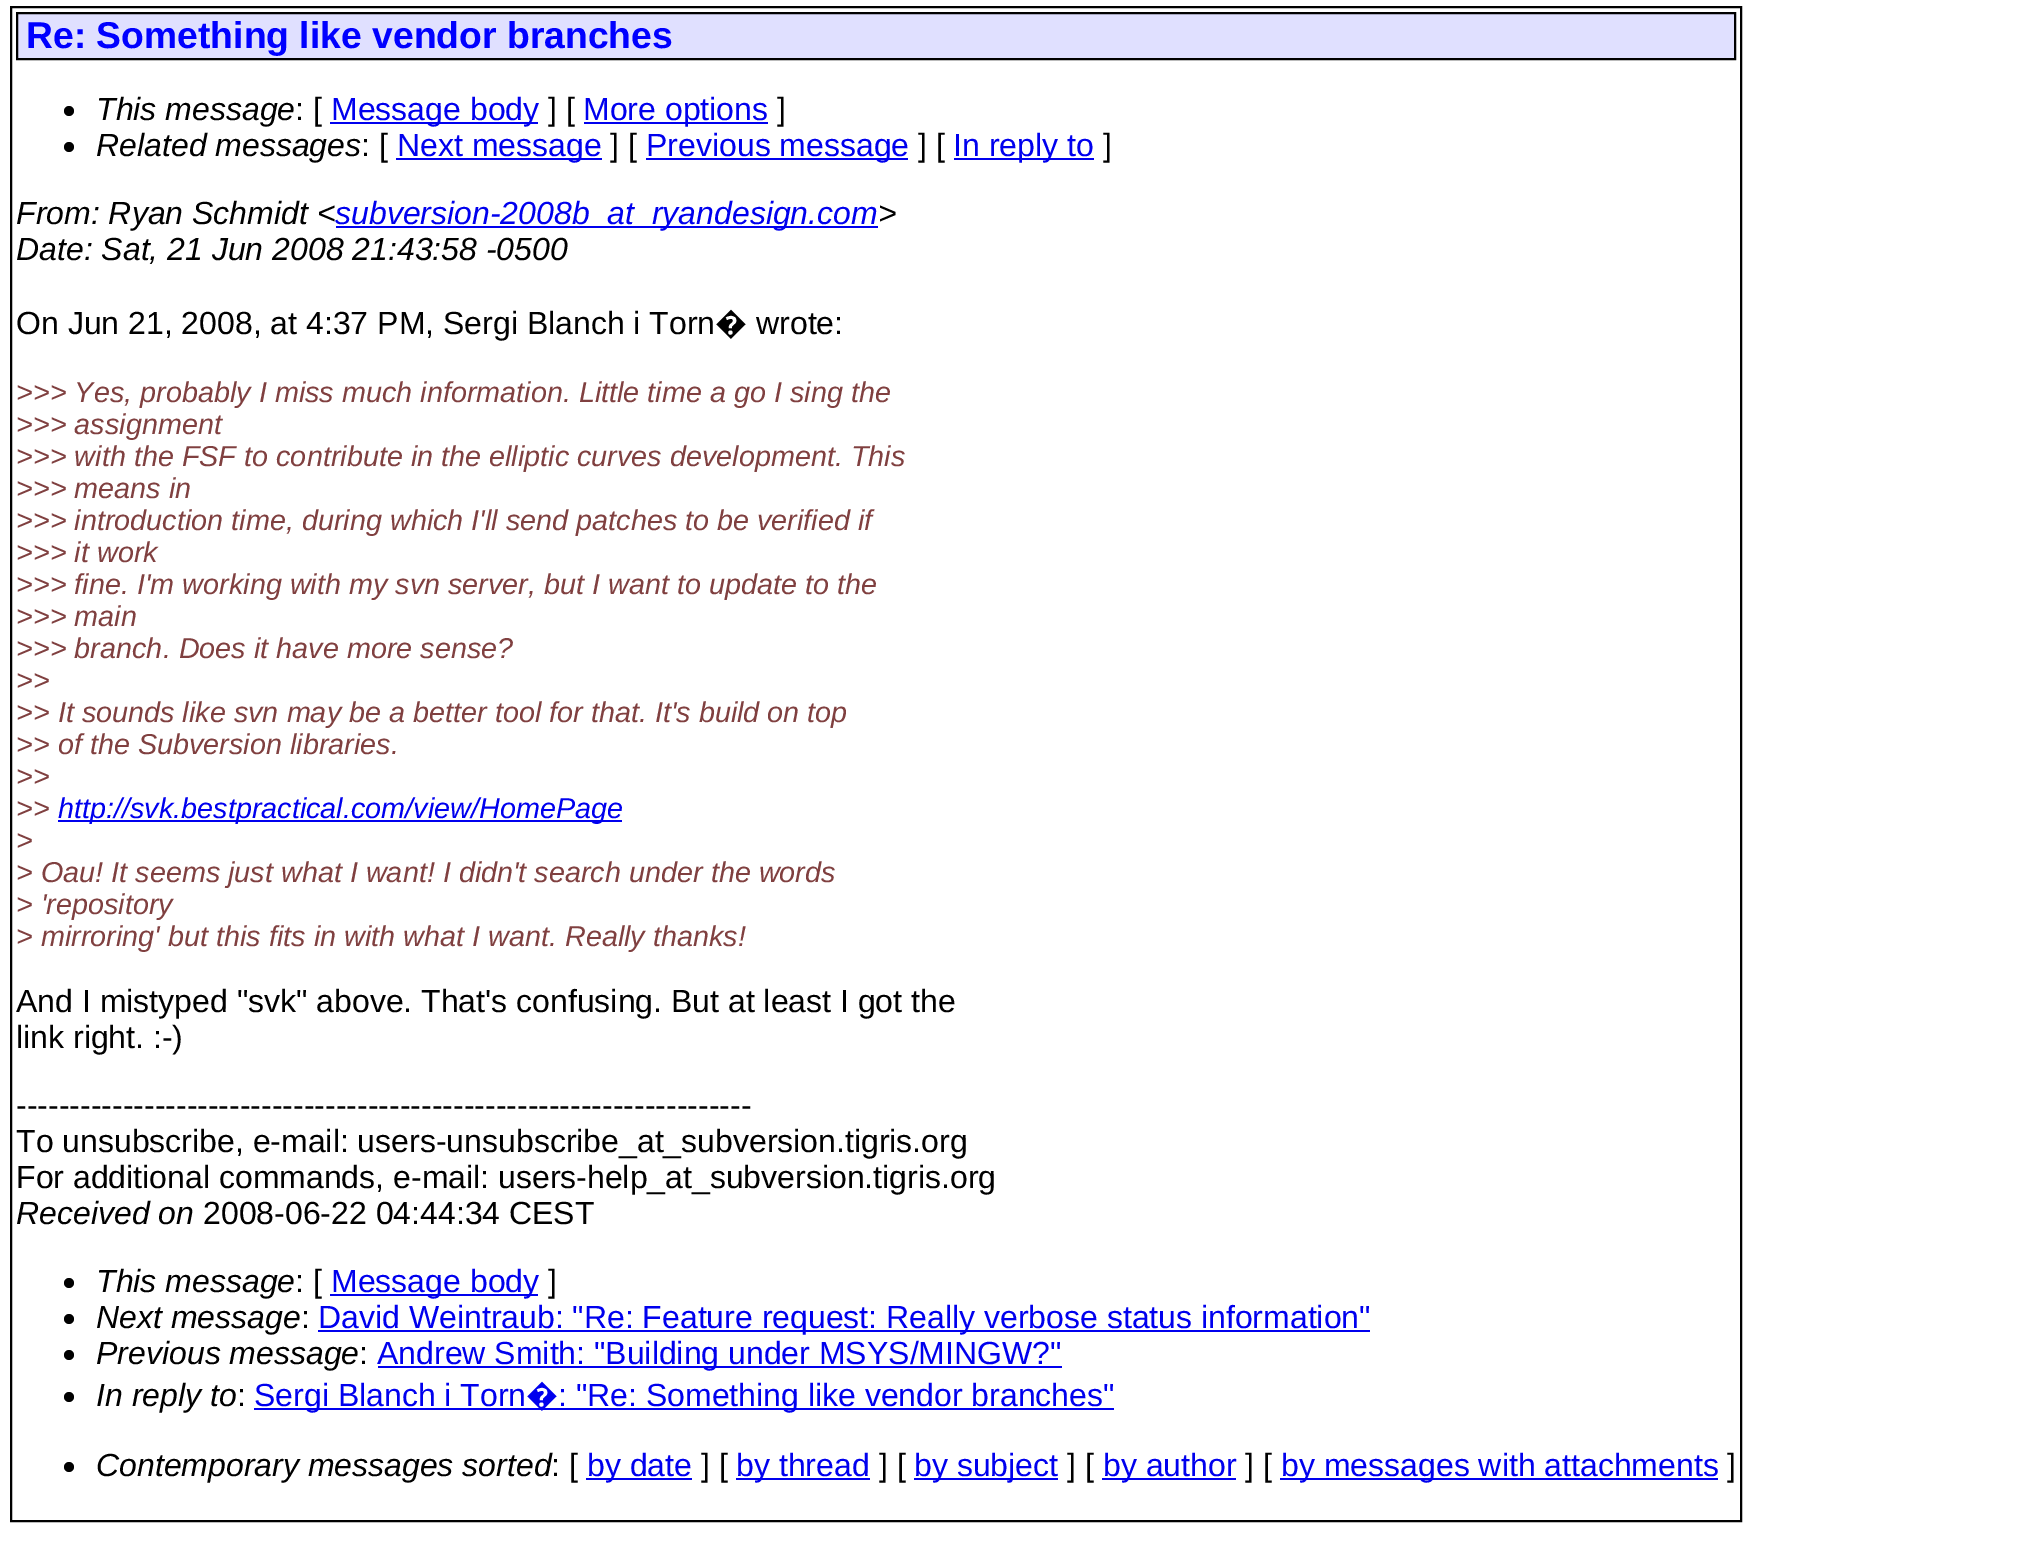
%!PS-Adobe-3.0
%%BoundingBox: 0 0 2040 1548
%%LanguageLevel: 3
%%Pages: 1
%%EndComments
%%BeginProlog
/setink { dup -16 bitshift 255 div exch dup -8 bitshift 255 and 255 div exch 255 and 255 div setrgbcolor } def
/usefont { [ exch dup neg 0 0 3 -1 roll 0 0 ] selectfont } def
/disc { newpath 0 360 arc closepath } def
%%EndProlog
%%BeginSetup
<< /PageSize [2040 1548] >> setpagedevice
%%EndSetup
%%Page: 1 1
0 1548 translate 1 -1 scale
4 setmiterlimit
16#FFFFFF setink
0 0 2040 1548 rectfill
16#000000 setink
2 setlinewidth
11 7 1730 1514 rectstroke
16#E0E0FF setink
17 13 moveto 1735 13 lineto 1735 59 lineto 17 59 lineto closepath gsave fill grestore
16#000000 setink
stroke
/LiberationSans-Bold 37.3 usefont
16#0000FF setink
26 48 moveto (Re: Something like vendor branches) show
16#000000 setink
69 111 5 disc fill
/LiberationSans-Italic 32 usefont
96 120 moveto (This message) show
/LiberationSans-Regular 32 usefont
295 120 moveto (: [) show
16#0000EE setink
330 122 208 2 rectfill
331 120 moveto (Message body) show
16#000000 setink
548 120 moveto (] [) show
16#0000EE setink
584 122 184 2 rectfill
583 120 moveto (More options) show
16#000000 setink
777 120 moveto (]) show
69 147 5 disc fill
/LiberationSans-Italic 32 usefont
96 156 moveto (Related messages) show
/LiberationSans-Regular 32 usefont
361 156 moveto (: [) show
16#0000EE setink
396 158 206 2 rectfill
397 156 moveto (Next message) show
16#000000 setink
610 156 moveto (] [) show
16#0000EE setink
646 158 262 2 rectfill
646 156 moveto (Previous message) show
16#000000 setink
918 156 moveto (] [) show
16#0000EE setink
954 158 140 2 rectfill
953 156 moveto (In reply to) show
16#000000 setink
1103 156 moveto (]) show
/LiberationSans-Italic 32 usefont
16 224 moveto (From: Ryan Schmidt <) show
16#0000EE setink
336 226 542 2 rectfill
335 224 moveto (subversion-2008b_at_ryandesign.com) show
16#000000 setink
878 224 moveto (>) show
16 260 moveto (Date: Sat, 21 Jun 2008 21:43:58 -0500) show
/LiberationSans-Regular 32 usefont
16 334 moveto (On Jun 21, 2008, at 4:37 PM, Sergi Blanch i Torn) show
/NotoSans-Regular 32 usefont
715 334 moveto (�) show
/LiberationSans-Regular 32 usefont
756 334 moveto (wrote:) show
/LiberationSans-Italic 28.8 usefont
16#804040 setink
[
    [(>>> Yes, probably I miss much information. Little time a go I sing the) 16 402]
    [(>>> assignment) 16 434]
    [(>>> with the FSF to contribute in the elliptic curves development. This) 16 466]
    [(>>> means in) 16 498]
    [(>>> introduction time, during which I'll send patches to be verified if) 16 530]
    [(>>> it work) 16 562]
    [(>>> fine. I'm working with my svn server, but I want to update to the) 16 594]
    [(>>> main) 16 626]
    [(>>> branch. Does it have more sense?) 16 658]
    [(>>) 16 690]
    [(>> It sounds like svn may be a better tool for that. It's build on top) 16 722]
    [(>> of the Subversion libraries.) 16 754]
    [(>>) 16 786]
    [(>>) 16 818]
] { aload pop moveto show } forall
16#0000EE setink
58 820 564 2 rectfill
58 818 moveto (http://svk.bestpractical.com/view/HomePage) show
16#804040 setink
[
    [(>) 16 850]
    [(> Oau! It seems just what I want! I didn't search under the words) 16 882]
    [(> 'repository) 16 914]
    [(> mirroring' but this fits in with what I want. Really thanks!) 16 946]
] { aload pop moveto show } forall
/LiberationSans-Regular 32 usefont
16#000000 setink
[
    [(And I mistyped "svk" above. That's confusing. But at least I got the) 16 1012]
    [(link right. :-\)) 16 1048]
    [(---------------------------------------------------------------------) 16 1116]
    [(To unsubscribe, e-mail: users-unsubscribe_at_subversion.tigris.org) 16 1152]
    [(For additional commands, e-mail: users-help_at_subversion.tigris.org) 16 1188]
] { aload pop moveto show } forall
/LiberationSans-Italic 32 usefont
16 1224 moveto (Received on) show
/LiberationSans-Regular 32 usefont
203 1224 moveto (2008-06-22 04:44:34 CEST) show
69 1283 5 disc fill
/LiberationSans-Italic 32 usefont
96 1292 moveto (This message) show
/LiberationSans-Regular 32 usefont
295 1292 moveto (: [) show
16#0000EE setink
330 1294 208 2 rectfill
331 1292 moveto (Message body) show
16#000000 setink
548 1292 moveto (]) show
69 1319 5 disc fill
/LiberationSans-Italic 32 usefont
96 1328 moveto (Next message) show
/LiberationSans-Regular 32 usefont
301 1328 moveto (:) show
16#0000EE setink
318 1330 1052 2 rectfill
318 1328 moveto (David Weintraub: "Re: Feature request: Really verbose status information") show
16#000000 setink
69 1355 5 disc fill
/LiberationSans-Italic 32 usefont
96 1364 moveto (Previous message) show
/LiberationSans-Regular 32 usefont
359 1364 moveto (:) show
16#0000EE setink
378 1366 684 2 rectfill
377 1364 moveto (Andrew Smith: "Building under MSYS/MINGW?") show
16#000000 setink
69 1397 5 disc fill
/LiberationSans-Italic 32 usefont
96 1406 moveto (In reply to) show
/LiberationSans-Regular 32 usefont
237 1406 moveto (:) show
16#0000EE setink
254 1408 860 2 rectfill
254 1406 moveto (Sergi Blanch i Torn) show
/NotoSans-Regular 32 usefont
526 1406 moveto (�) show
/LiberationSans-Regular 32 usefont
558 1406 moveto (: "Re: Something like vendor branches") show
16#000000 setink
69 1467 5 disc fill
/LiberationSans-Italic 32 usefont
96 1476 moveto (Contemporary messages sorted) show
/LiberationSans-Regular 32 usefont
551 1476 moveto (: [) show
16#0000EE setink
586 1478 106 2 rectfill
587 1476 moveto (by date) show
16#000000 setink
701 1476 moveto (] [) show
16#0000EE setink
736 1478 134 2 rectfill
736 1476 moveto (by thread) show
16#000000 setink
879 1476 moveto (] [) show
16#0000EE setink
914 1478 144 2 rectfill
914 1476 moveto (by subject) show
16#000000 setink
1067 1476 moveto (] [) show
16#0000EE setink
1102 1478 134 2 rectfill
1103 1476 moveto (by author) show
16#000000 setink
1245 1476 moveto (] [) show
16#0000EE setink
1280 1478 438 2 rectfill
1281 1476 moveto (by messages with attachments) show
16#000000 setink
1727 1476 moveto (]) show
showpage
%%EOF
